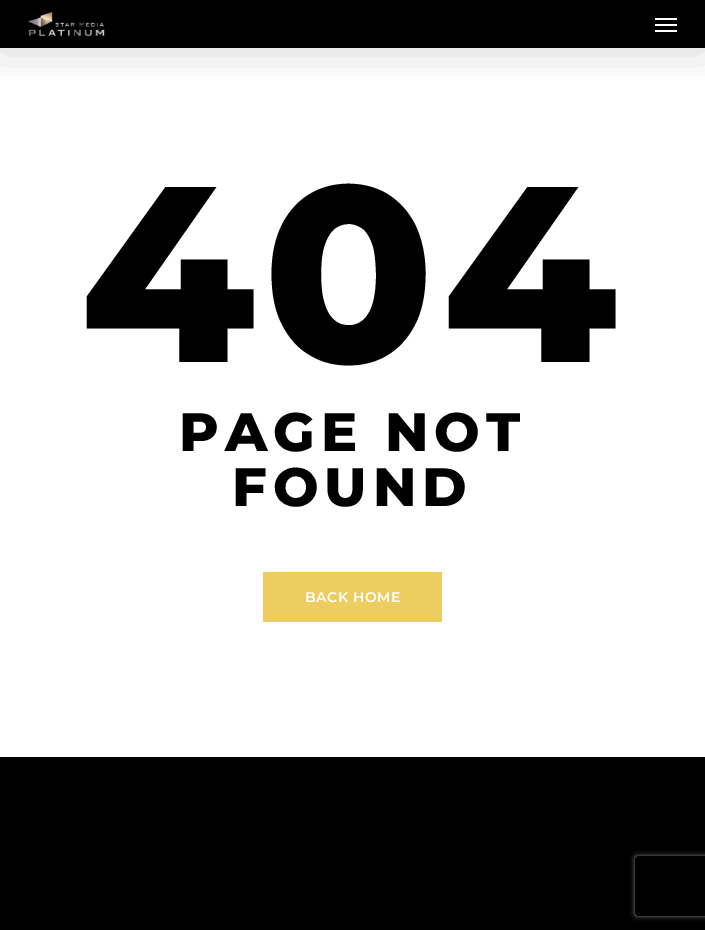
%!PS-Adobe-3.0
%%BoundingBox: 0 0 705 930
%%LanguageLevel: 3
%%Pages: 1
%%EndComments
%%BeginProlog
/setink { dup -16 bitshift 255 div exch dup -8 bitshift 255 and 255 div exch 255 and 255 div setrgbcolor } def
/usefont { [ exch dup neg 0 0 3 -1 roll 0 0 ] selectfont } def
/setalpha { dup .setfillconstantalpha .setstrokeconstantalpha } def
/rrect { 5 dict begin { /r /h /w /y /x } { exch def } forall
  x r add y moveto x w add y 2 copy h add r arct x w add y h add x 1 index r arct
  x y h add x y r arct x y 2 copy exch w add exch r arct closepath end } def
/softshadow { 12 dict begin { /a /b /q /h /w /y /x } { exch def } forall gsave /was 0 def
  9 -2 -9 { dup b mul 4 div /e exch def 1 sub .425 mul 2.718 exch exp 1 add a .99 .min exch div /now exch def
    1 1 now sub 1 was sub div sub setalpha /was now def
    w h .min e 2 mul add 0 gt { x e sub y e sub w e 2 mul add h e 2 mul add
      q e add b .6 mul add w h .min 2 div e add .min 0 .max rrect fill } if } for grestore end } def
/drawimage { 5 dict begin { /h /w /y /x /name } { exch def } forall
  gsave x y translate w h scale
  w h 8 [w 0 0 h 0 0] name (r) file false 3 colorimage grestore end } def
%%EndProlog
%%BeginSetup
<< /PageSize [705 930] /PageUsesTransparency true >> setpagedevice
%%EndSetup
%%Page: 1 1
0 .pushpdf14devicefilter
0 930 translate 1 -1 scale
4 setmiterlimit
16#FFFFFF setink
0 0 705 930 rectfill
16#000000 setink
0 0 705 48 rectfill
gsave
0 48 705 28 rectclip
0 3 705 48 0 22.5 0.15 softshadow
grestore
(img1.raw) 28 12 77 24 drawimage
[
    [655 18 22 2 16#FFFFFF]
    [655 30 22 2 16#FFFFFF]
    [655 24 22 2 16#FFFFFF]
] { aload pop setink rectfill } forall
/Montserrat-ExtraBold 250 usefont
16#000000 setink
80 362 moveto 8 0 (404) ashow
/Montserrat-ExtraBold 54 usefont
179 451 moveto 6 0 (PAGE NOT) ashow
232 506 moveto 6 0 (FOUND) ashow
16#EDCD5F setink
263 572 179 50 rectfill
/Montserrat-SemiBold 14 usefont
16#FFFFFF setink
305 602 moveto 0.5 0 (BACK HOME) ashow
16#000000 setink
0 757 705 173 rectfill
gsave
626 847 moveto 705 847 lineto 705 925 lineto 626 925 lineto closepath 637 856 moveto 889 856 lineto 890 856 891 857 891 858 curveto 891 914 lineto 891 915 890 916 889 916 curveto 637 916 lineto 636 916 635 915 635 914 curveto 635 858 lineto 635 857 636 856 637 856 curveto closepath eoclip newpath
16#808080 setink
635 856 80 60 2 2.5 1 softshadow
grestore
.poppdf14devicefilter showpage
%%EOF
